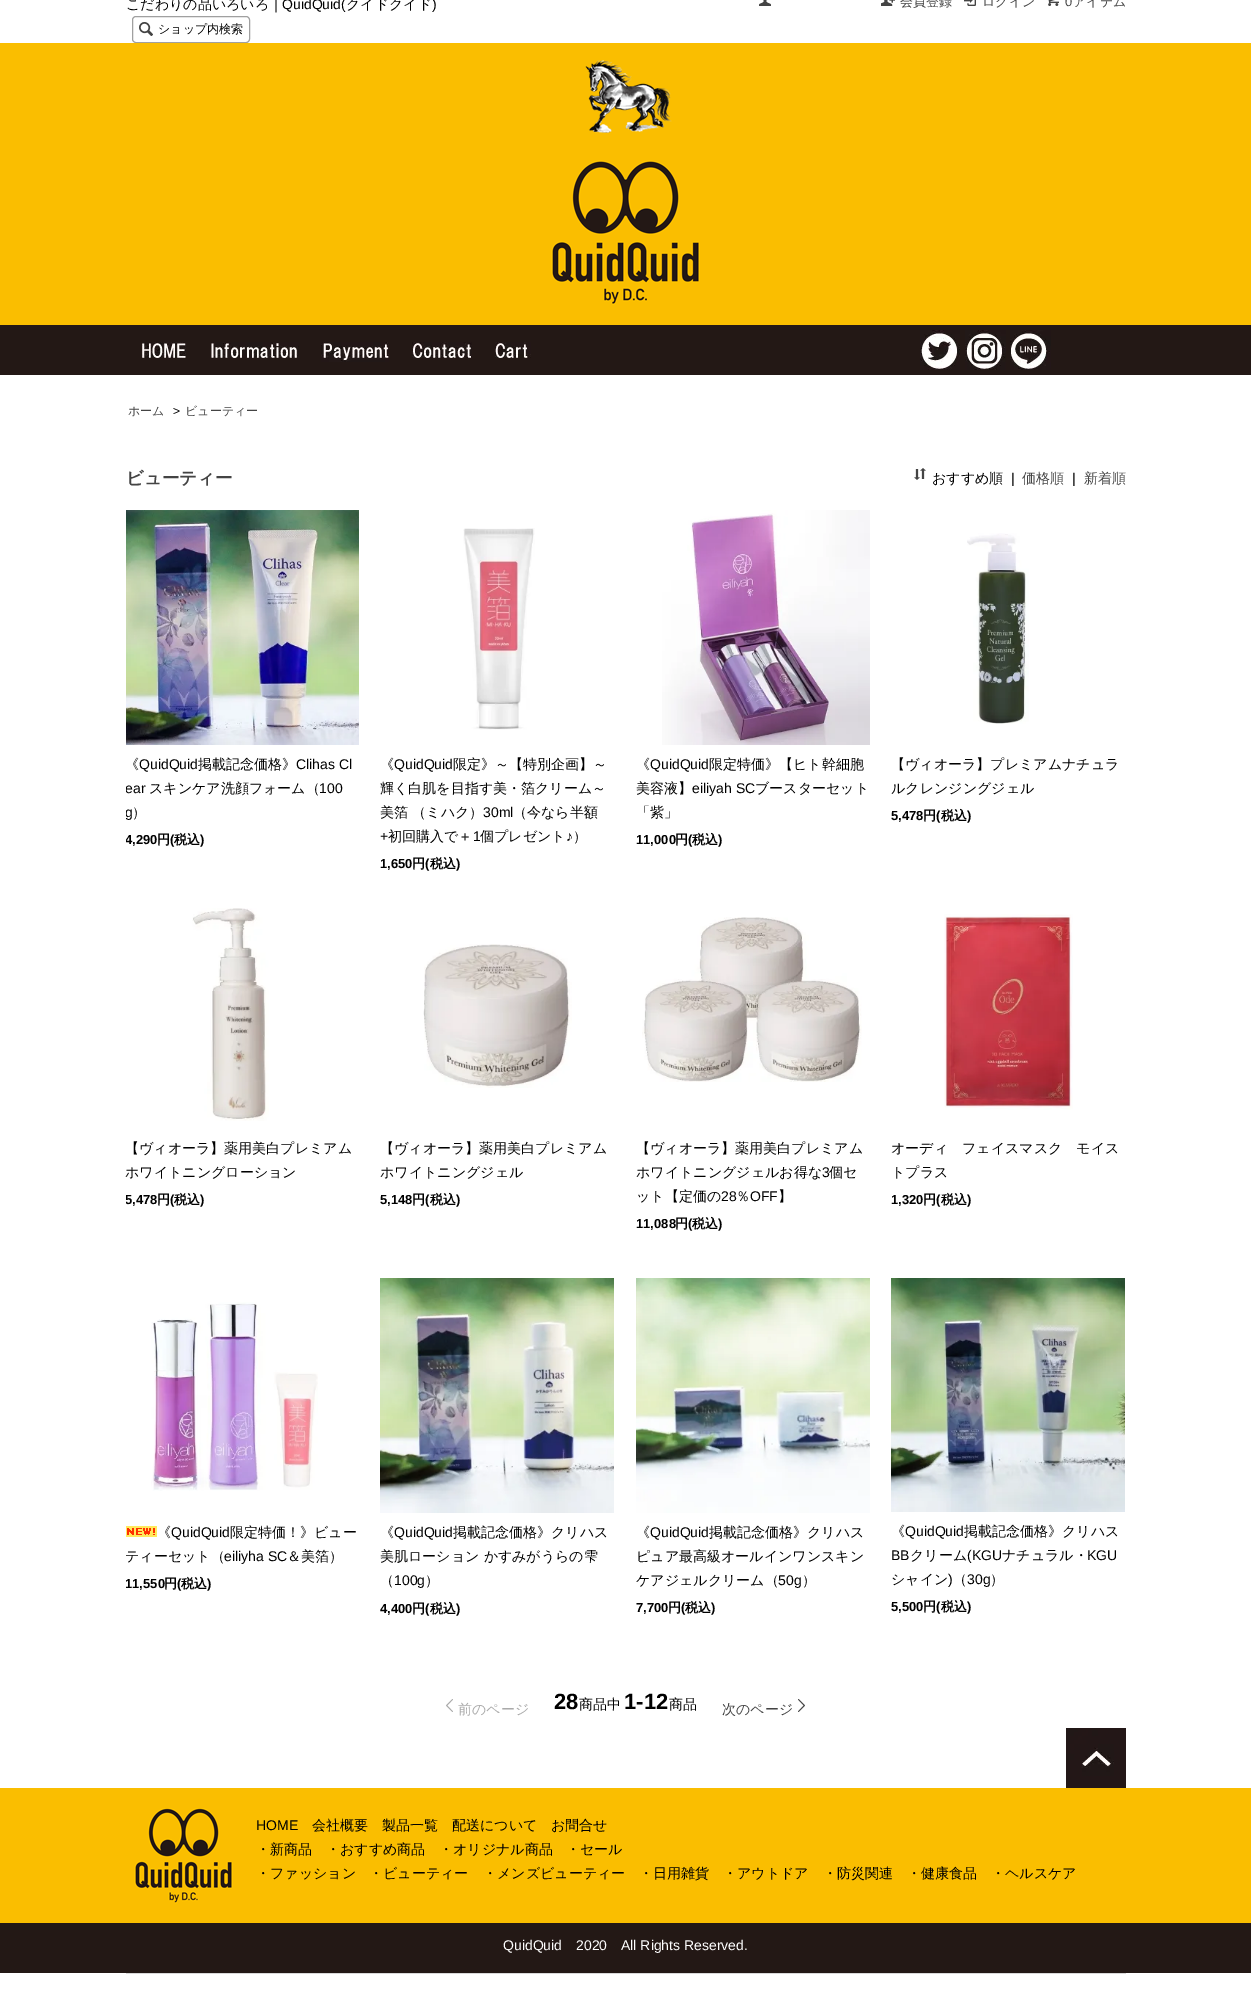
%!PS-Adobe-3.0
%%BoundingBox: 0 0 1251 2009
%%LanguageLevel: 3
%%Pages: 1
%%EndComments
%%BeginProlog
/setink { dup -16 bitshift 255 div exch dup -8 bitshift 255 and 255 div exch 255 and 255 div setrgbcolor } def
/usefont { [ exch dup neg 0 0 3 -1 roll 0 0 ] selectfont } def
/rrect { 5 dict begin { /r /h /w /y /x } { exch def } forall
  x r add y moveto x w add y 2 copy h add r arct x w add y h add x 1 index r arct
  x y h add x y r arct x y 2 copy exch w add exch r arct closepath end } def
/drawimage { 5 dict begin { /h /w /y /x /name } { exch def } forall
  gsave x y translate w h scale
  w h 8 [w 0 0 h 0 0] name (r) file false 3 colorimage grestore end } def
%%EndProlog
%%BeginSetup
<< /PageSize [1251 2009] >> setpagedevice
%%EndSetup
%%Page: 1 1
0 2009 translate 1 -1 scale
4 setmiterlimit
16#FFFFFF setink
0 0 1251 2009 rectfill
/WenQuanYiZenHei-Medium 14 usefont
16#000000 setink
126 9 moveto (こだわりの品いろいろ｜) show
/LiberationSans-Regular 14 usefont
282 9 moveto (QuidQuid\() show
/WenQuanYiZenHei-Medium 14 usefont
346 9 moveto (クイドクイド) show
/LiberationSans-Regular 14 usefont
432 9 moveto (\)) show
(img1.raw) 759 0 12 6 drawimage
(img2.raw) 881 0 14 6 drawimage
/WenQuanYiZenHei-Medium 13 usefont
16#444444 setink
900 6 moveto (会員登録) show
(img3.raw) 964 0 12 6 drawimage
982 6 moveto (ログイン) show
(img4.raw) 1048 0 11 6 drawimage
/LiberationSans-Regular 13 usefont
1065 6 moveto (0) show
/WenQuanYiZenHei-Medium 13 usefont
1073 6 moveto (アイテム) show
16#A0A0A0 setink
132.5 16.5 117 26 3.5 rrect stroke
(img5.raw) 139 22 14 14 drawimage
/WenQuanYiZenHei-Medium 12 usefont
16#000000 setink
158 33 moveto (ショップ内検索) show
16#FABE00 setink
0 43 1251 282 rectfill
(img6.raw) 585 60 87 73 drawimage
(img7.raw) 551 160 149 145 drawimage
16#231815 setink
0 325 1251 50 rectfill
(img8.raw) 142 342 44 16 drawimage
(img9.raw) 211 342 88 16 drawimage
(img10.raw) 321 342 68 20 drawimage
(img11.raw) 412 342 60 16 drawimage
(img12.raw) 495 342 36 16 drawimage
(img13.raw) 920 330 40 40 drawimage
(img14.raw) 965 330 41 40 drawimage
(img15.raw) 1010 330 41 40 drawimage
16#444444 setink
128 415 moveto (ホーム) show
/LiberationSans-Regular 12 usefont
16#000000 setink
173 415 moveto (>) show
/WenQuanYiZenHei-Medium 12 usefont
16#444444 setink
185 415 moveto (ビューティー) show
/WenQuanYiZenHei-Bold 17.5 usefont
126 484 moveto (ビューティー) show
(img16.raw) 914 468 12 12 drawimage
/WenQuanYiZenHei-Medium 14 usefont
16#000000 setink
932 483 moveto (おすすめ順) show
/LiberationSans-Regular 14 usefont
1011 483 moveto (|) show
/WenQuanYiZenHei-Medium 14 usefont
16#444444 setink
1022 483 moveto (価格順) show
/LiberationSans-Regular 14 usefont
16#000000 setink
1072 483 moveto (|) show
/WenQuanYiZenHei-Medium 14 usefont
16#444444 setink
1084 483 moveto (新着順) show
(img17.raw) 126 510 233 235 drawimage
16#000000 setink
125 769 moveto (《) show
/LiberationSans-Regular 14 usefont
139 769 moveto (QuidQuid) show
/WenQuanYiZenHei-Medium 14 usefont
198 769 moveto (掲載記念価格》) show
/LiberationSans-Regular 14 usefont
296 769 moveto (Clihas Cl) show
gsave
126 510 1000 1152 rectclip
125 793 moveto (ear) show
grestore
/WenQuanYiZenHei-Medium 14 usefont
149 793 moveto (スキンケア洗顔フォーム（) show
/LiberationSans-Regular 14 usefont
319 793 moveto (100) show
gsave
126 510 1000 1152 rectclip
125 817 moveto (g) show
grestore
/WenQuanYiZenHei-Medium 14 usefont
132 817 moveto (）) show
gsave
126 510 1000 1152 rectclip
/LiberationSans-Bold 13 usefont
125 844 moveto (4,290) show
grestore
/WenQuanYiZenHei-Bold 13 usefont
157 844 moveto (円) show
/LiberationSans-Bold 13 usefont
170 844 moveto (\() show
/WenQuanYiZenHei-Bold 13 usefont
174 844 moveto (税込) show
/LiberationSans-Bold 13 usefont
200 844 moveto (\)) show
(img18.raw) 463 528 72 202 drawimage
/WenQuanYiZenHei-Medium 14 usefont
380 769 moveto (《) show
/LiberationSans-Regular 14 usefont
394 769 moveto (QuidQuid) show
/WenQuanYiZenHei-Medium 14 usefont
[
    [(限定》～【特別企画】～) 453 769]
    [(輝く白肌を目指す美・箔クリーム～) 380 793]
    [(美箔 （ミハク）) 380 817]
] { aload pop moveto show } forall
/LiberationSans-Regular 14 usefont
483 817 moveto (30ml) show
/WenQuanYiZenHei-Medium 14 usefont
513 817 moveto (（今なら半額) show
/LiberationSans-Regular 14 usefont
380 841 moveto (+) show
/WenQuanYiZenHei-Medium 14 usefont
388 841 moveto (初回購入で＋) show
/LiberationSans-Regular 14 usefont
473 841 moveto (1) show
/WenQuanYiZenHei-Medium 14 usefont
480 841 moveto (個プレゼント) show
/LiberationSans-Regular 14 usefont
566 841 moveto (♪) show
/WenQuanYiZenHei-Medium 14 usefont
573 841 moveto (）) show
/LiberationSans-Bold 13 usefont
380 868 moveto (1,650) show
/WenQuanYiZenHei-Bold 13 usefont
412 868 moveto (円) show
/LiberationSans-Bold 13 usefont
425 868 moveto (\() show
/WenQuanYiZenHei-Bold 13 usefont
430 868 moveto (税込) show
/LiberationSans-Bold 13 usefont
456 868 moveto (\)) show
(img19.raw) 662 510 208 235 drawimage
/WenQuanYiZenHei-Medium 14 usefont
636 769 moveto (《) show
/LiberationSans-Regular 14 usefont
650 769 moveto (QuidQuid) show
/WenQuanYiZenHei-Medium 14 usefont
709 769 moveto (限定特価》【ヒト幹細胞) show
636 793 moveto (美容液】) show
/LiberationSans-Regular 14 usefont
692 793 moveto (eiliyah SC) show
/WenQuanYiZenHei-Medium 14 usefont
755 793 moveto (ブースターセット) show
636 817 moveto (「紫」) show
/LiberationSans-Bold 13 usefont
636 844 moveto (11,000) show
/WenQuanYiZenHei-Bold 13 usefont
675 844 moveto (円) show
/LiberationSans-Bold 13 usefont
688 844 moveto (\() show
/WenQuanYiZenHei-Bold 13 usefont
692 844 moveto (税込) show
/LiberationSans-Bold 13 usefont
718 844 moveto (\)) show
(img20.raw) 967 533 62 191 drawimage
/WenQuanYiZenHei-Medium 14 usefont
891 769 moveto (【ヴィオーラ】プレミアムナチュラ) show
891 793 moveto (ルクレンジングジェル) show
/LiberationSans-Bold 13 usefont
891 820 moveto (5,478) show
/WenQuanYiZenHei-Bold 13 usefont
923 820 moveto (円) show
/LiberationSans-Bold 13 usefont
936 820 moveto (\() show
/WenQuanYiZenHei-Bold 13 usefont
941 820 moveto (税込) show
/LiberationSans-Bold 13 usefont
967 820 moveto (\)) show
(img21.raw) 192 908 77 213 drawimage
/WenQuanYiZenHei-Medium 14 usefont
125 1153 moveto (【ヴィオーラ】薬用美白プレミアム) show
125 1177 moveto (ホワイトニングローション) show
gsave
126 510 1000 1152 rectclip
/LiberationSans-Bold 13 usefont
125 1204 moveto (5,478) show
grestore
/WenQuanYiZenHei-Bold 13 usefont
157 1204 moveto (円) show
/LiberationSans-Bold 13 usefont
170 1204 moveto (\() show
/WenQuanYiZenHei-Bold 13 usefont
174 1204 moveto (税込) show
/LiberationSans-Bold 13 usefont
200 1204 moveto (\)) show
(img22.raw) 423 944 149 144 drawimage
/WenQuanYiZenHei-Medium 14 usefont
380 1153 moveto (【ヴィオーラ】薬用美白プレミアム) show
380 1177 moveto (ホワイトニングジェル) show
/LiberationSans-Bold 13 usefont
380 1204 moveto (5,148) show
/WenQuanYiZenHei-Bold 13 usefont
412 1204 moveto (円) show
/LiberationSans-Bold 13 usefont
425 1204 moveto (\() show
/WenQuanYiZenHei-Bold 13 usefont
430 1204 moveto (税込) show
/LiberationSans-Bold 13 usefont
456 1204 moveto (\)) show
(img23.raw) 642 917 220 165 drawimage
/WenQuanYiZenHei-Medium 14 usefont
636 1153 moveto (【ヴィオーラ】薬用美白プレミアム) show
636 1177 moveto (ホワイトニングジェルお得な) show
/LiberationSans-Regular 14 usefont
822 1177 moveto (3) show
/WenQuanYiZenHei-Medium 14 usefont
829 1177 moveto (個セ) show
636 1201 moveto (ット【定価の) show
/LiberationSans-Regular 14 usefont
721 1201 moveto (28) show
/WenQuanYiZenHei-Medium 14 usefont
736 1201 moveto (％) show
/LiberationSans-Regular 14 usefont
750 1201 moveto (OFF) show
/WenQuanYiZenHei-Medium 14 usefont
778 1201 moveto (】) show
/LiberationSans-Bold 13 usefont
636 1228 moveto (11,088) show
/WenQuanYiZenHei-Bold 13 usefont
675 1228 moveto (円) show
/LiberationSans-Bold 13 usefont
688 1228 moveto (\() show
/WenQuanYiZenHei-Bold 13 usefont
692 1228 moveto (税込) show
/LiberationSans-Bold 13 usefont
718 1228 moveto (\)) show
(img24.raw) 944 914 129 196 drawimage
/WenQuanYiZenHei-Medium 14 usefont
891 1153 moveto (オーディ　フェイスマスク　モイス) show
891 1177 moveto (トプラス) show
/LiberationSans-Bold 13 usefont
891 1204 moveto (1,320) show
/WenQuanYiZenHei-Bold 13 usefont
923 1204 moveto (円) show
/LiberationSans-Bold 13 usefont
936 1204 moveto (\() show
/WenQuanYiZenHei-Bold 13 usefont
941 1204 moveto (税込) show
/LiberationSans-Bold 13 usefont
967 1204 moveto (\)) show
(img25.raw) 151 1302 167 189 drawimage
(img26.raw) 126 1526 31 11 drawimage
/WenQuanYiZenHei-Medium 14 usefont
157 1537 moveto (《) show
/LiberationSans-Regular 14 usefont
171 1537 moveto (QuidQuid) show
/WenQuanYiZenHei-Medium 14 usefont
230 1537 moveto (限定特価！》ビュー) show
125 1561 moveto (ティーセット（) show
/LiberationSans-Regular 14 usefont
224 1561 moveto (eiliyha SC) show
/WenQuanYiZenHei-Medium 14 usefont
287 1561 moveto (＆美箔）) show
gsave
126 510 1000 1152 rectclip
/LiberationSans-Bold 13 usefont
125 1588 moveto (11,550) show
grestore
/WenQuanYiZenHei-Bold 13 usefont
164 1588 moveto (円) show
/LiberationSans-Bold 13 usefont
177 1588 moveto (\() show
/WenQuanYiZenHei-Bold 13 usefont
181 1588 moveto (税込) show
/LiberationSans-Bold 13 usefont
207 1588 moveto (\)) show
(img27.raw) 380 1278 234 235 drawimage
/WenQuanYiZenHei-Medium 14 usefont
380 1537 moveto (《) show
/LiberationSans-Regular 14 usefont
394 1537 moveto (QuidQuid) show
/WenQuanYiZenHei-Medium 14 usefont
[
    [(掲載記念価格》クリハス) 453 1537]
    [(美肌ローション かすみがうらの雫) 380 1561]
    [(（) 380 1585]
] { aload pop moveto show } forall
/LiberationSans-Regular 14 usefont
394 1585 moveto (100g) show
/WenQuanYiZenHei-Medium 14 usefont
425 1585 moveto (）) show
/LiberationSans-Bold 13 usefont
380 1613 moveto (4,400) show
/WenQuanYiZenHei-Bold 13 usefont
412 1613 moveto (円) show
/LiberationSans-Bold 13 usefont
425 1613 moveto (\() show
/WenQuanYiZenHei-Bold 13 usefont
430 1613 moveto (税込) show
/LiberationSans-Bold 13 usefont
456 1613 moveto (\)) show
(img28.raw) 636 1278 234 235 drawimage
/WenQuanYiZenHei-Medium 14 usefont
636 1537 moveto (《) show
/LiberationSans-Regular 14 usefont
650 1537 moveto (QuidQuid) show
/WenQuanYiZenHei-Medium 14 usefont
[
    [(掲載記念価格》クリハス) 709 1537]
    [(ピュア最高級オールインワンスキン) 636 1561]
    [(ケアジェルクリーム（) 636 1585]
] { aload pop moveto show } forall
/LiberationSans-Regular 14 usefont
778 1585 moveto (50g) show
/WenQuanYiZenHei-Medium 14 usefont
802 1585 moveto (）) show
/LiberationSans-Bold 13 usefont
636 1612 moveto (7,700) show
/WenQuanYiZenHei-Bold 13 usefont
668 1612 moveto (円) show
/LiberationSans-Bold 13 usefont
681 1612 moveto (\() show
/WenQuanYiZenHei-Bold 13 usefont
685 1612 moveto (税込) show
/LiberationSans-Bold 13 usefont
711 1612 moveto (\)) show
(img29.raw) 891 1278 234 234 drawimage
/WenQuanYiZenHei-Medium 14 usefont
891 1536 moveto (《) show
/LiberationSans-Regular 14 usefont
905 1536 moveto (QuidQuid) show
/WenQuanYiZenHei-Medium 14 usefont
964 1536 moveto (掲載記念価格》クリハス) show
/LiberationSans-Regular 14 usefont
891 1560 moveto (BB) show
/WenQuanYiZenHei-Medium 14 usefont
910 1560 moveto (クリーム) show
/LiberationSans-Regular 14 usefont
967 1560 moveto (\(KGU) show
/WenQuanYiZenHei-Medium 14 usefont
1002 1560 moveto (ナチュラル・) show
/LiberationSans-Regular 14 usefont
1087 1560 moveto (KGU) show
/WenQuanYiZenHei-Medium 14 usefont
891 1584 moveto (シャイン) show
/LiberationSans-Regular 14 usefont
948 1584 moveto (\)) show
/WenQuanYiZenHei-Medium 14 usefont
953 1584 moveto (（) show
/LiberationSans-Regular 14 usefont
967 1584 moveto (30g) show
/WenQuanYiZenHei-Medium 14 usefont
990 1584 moveto (）) show
/LiberationSans-Bold 13 usefont
891 1611 moveto (5,500) show
/WenQuanYiZenHei-Bold 13 usefont
923 1611 moveto (円) show
/LiberationSans-Bold 13 usefont
936 1611 moveto (\() show
/WenQuanYiZenHei-Bold 13 usefont
941 1611 moveto (税込) show
/LiberationSans-Bold 13 usefont
967 1611 moveto (\)) show
(img30.raw) 446 1699 7 13 drawimage
/WenQuanYiZenHei-Medium 14 usefont
16#AAAAAA setink
458 1714 moveto (前のページ) show
/LiberationSans-Bold 22 usefont
16#000000 setink
554 1709 moveto (28) show
/WenQuanYiZenHei-Medium 14 usefont
579 1709 moveto (商品中) show
/LiberationSans-Bold 22 usefont
624 1709 moveto (1-12) show
/WenQuanYiZenHei-Medium 14 usefont
669 1709 moveto (商品) show
16#444444 setink
722 1714 moveto (次のページ) show
(img31.raw) 798 1699 7 13 drawimage
(img32.raw) 1066 1728 60 60 drawimage
16#FABE00 setink
0 1788 1251 135 rectfill
(img33.raw) 134 1808 99 96 drawimage
/LiberationSans-Regular 14 usefont
16#000000 setink
256 1830 moveto (HOME) show
/WenQuanYiZenHei-Medium 14 usefont
[
    [(会社概要) 312 1830]
    [(製品一覧) 382 1830]
    [(配送について) 452 1830]
    [(お問合せ) 551 1830]
    [(・新商品) 256 1854]
    [(・おすすめ商品) 326 1854]
    [(・オリジナル商品) 439 1854]
    [(・セール) 566 1854]
    [(・ファッション) 256 1878]
    [(・ビューティー) 369 1878]
    [(・メンズビューティー) 483 1878]
    [(・日用雑貨) 639 1878]
    [(・アウトドア) 723 1878]
    [(・防災関連) 823 1878]
    [(・健康食品) 907 1878]
    [(・ヘルスケア) 991 1878]
] { aload pop moveto show } forall
16#231815 setink
0 1923 1251 50 rectfill
/LiberationSans-Regular 14 usefont
16#FFFFFF setink
[
    [(QuidQuid) 503 1950]
    [(2020) 576 1950]
    [(All Rights Reserved.) 621 1950]
] { aload pop moveto show } forall
16#D8D8D8 setink
126 1973 1000 1 rectfill
showpage
%%EOF
